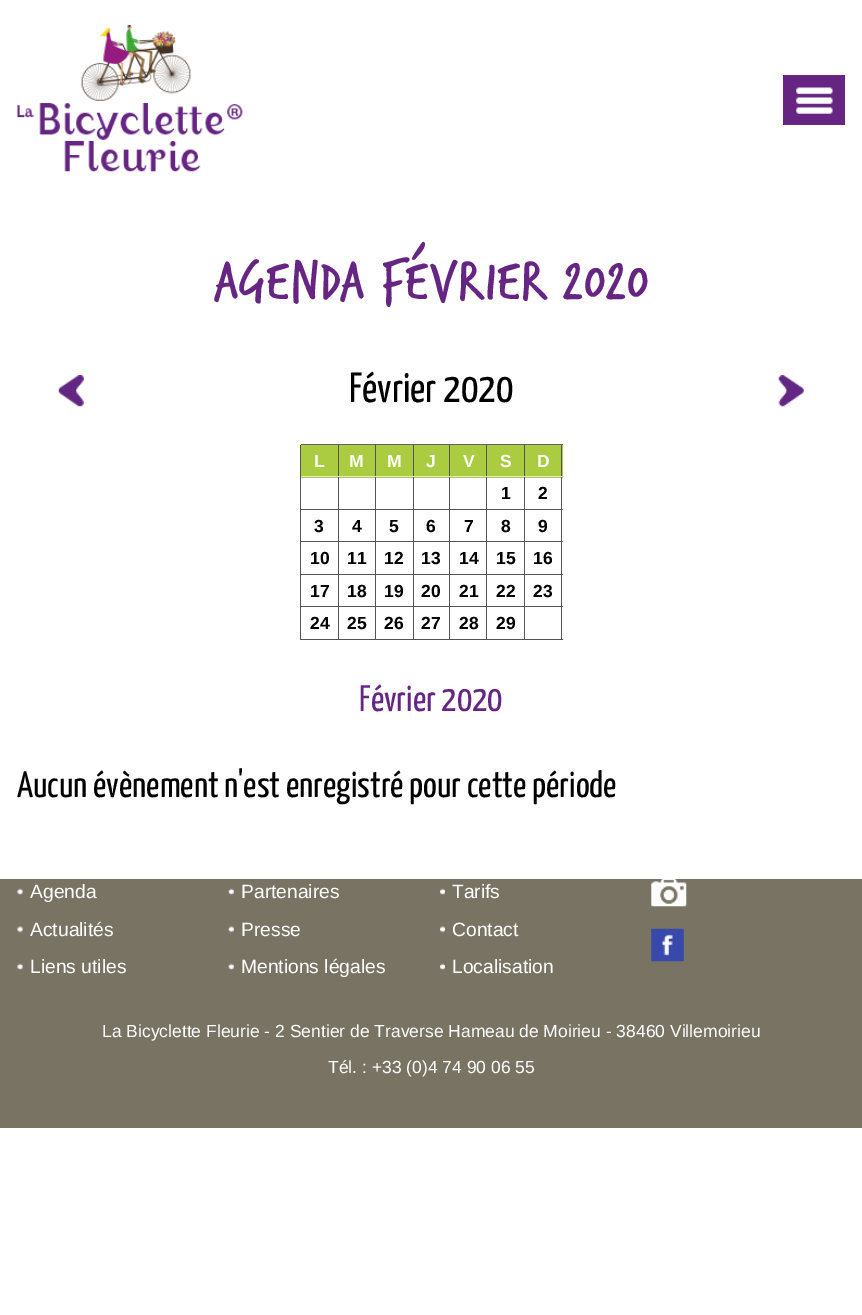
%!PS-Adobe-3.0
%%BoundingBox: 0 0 862 1315
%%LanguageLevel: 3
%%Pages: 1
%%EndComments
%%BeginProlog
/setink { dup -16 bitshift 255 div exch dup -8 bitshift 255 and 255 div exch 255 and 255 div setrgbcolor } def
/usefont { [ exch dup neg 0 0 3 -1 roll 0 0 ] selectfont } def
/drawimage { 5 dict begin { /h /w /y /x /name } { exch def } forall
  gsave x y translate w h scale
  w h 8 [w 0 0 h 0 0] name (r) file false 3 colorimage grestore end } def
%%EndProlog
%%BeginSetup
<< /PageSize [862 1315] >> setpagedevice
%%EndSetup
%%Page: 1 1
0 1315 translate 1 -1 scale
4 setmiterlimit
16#FFFFFF setink
0 0 862 1315 rectfill
(img1.raw) 17 25 226 147 drawimage
16#662483 setink
783 75 62 50 rectfill
(img2.raw) 796 87 37 27 drawimage
/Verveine-Regular 59.5 usefont
214 297 moveto (AGENDA FÉVRIER 2020) show
(img3.raw) 58 375 26 32 drawimage
[
    [525 445 38 33 16#ABCB40]
    [524 509 39 1 16#555553]
    [524 541 39 1 16#555553]
    [524 574 39 1 16#555553]
    [524 606 39 1 16#555553]
    [561 606 1 34 16#555553]
    [561 574 1 34 16#555553]
    [561 541 1 34 16#555553]
    [561 444 1 99 16#555553]
    [561 444 1 1 16#FFFFFF]
    [301 445 37 33 16#ABCB40]
    [339 445 36 33 16#ABCB40]
    [376 445 37 33 16#ABCB40]
    [414 445 35 33 16#ABCB40]
    [450 445 74 33 16#ABCB40]
    [524 639 39 1 16#555553]
    [524 606 1 34 16#555553]
    [486 606 39 1 16#555553]
    [524 574 1 34 16#555553]
    [486 574 39 1 16#555553]
    [524 541 1 34 16#555553]
    [486 541 39 1 16#555553]
    [524 509 1 34 16#555553]
    [486 509 39 1 16#555553]
    [524 476 1 34 16#555553]
    [524 476 39 1 16#E7E5DF]
    [524 444 1 34 16#555553]
    [486 639 39 1 16#555553]
    [486 606 1 34 16#555553]
    [449 606 39 1 16#555553]
    [486 574 1 34 16#555553]
    [449 574 39 1 16#555553]
    [486 541 1 34 16#555553]
    [449 541 39 1 16#555553]
    [486 509 1 34 16#555553]
    [449 509 39 1 16#555553]
    [486 476 1 34 16#555553]
    [486 476 39 1 16#E7E5DF]
    [486 444 1 34 16#555553]
    [449 639 39 1 16#555553]
    [449 606 1 34 16#555553]
    [413 606 37 1 16#555553]
    [449 574 1 34 16#555553]
    [413 574 37 1 16#555553]
    [449 541 1 34 16#555553]
    [413 541 37 1 16#555553]
    [449 509 1 34 16#555553]
    [413 509 37 1 16#555553]
    [449 476 1 34 16#555553]
    [449 476 39 1 16#E7E5DF]
    [449 444 1 34 16#555553]
    [413 639 37 1 16#555553]
    [413 606 1 34 16#555553]
    [375 606 39 1 16#555553]
    [413 574 1 34 16#555553]
    [375 574 39 1 16#555553]
    [413 541 1 34 16#555553]
    [375 541 39 1 16#555553]
    [413 509 1 34 16#555553]
    [375 509 39 1 16#555553]
    [413 476 1 34 16#555553]
    [413 476 37 1 16#E7E5DF]
    [413 444 1 34 16#555553]
    [375 639 39 1 16#555553]
    [375 606 1 34 16#555553]
    [338 606 38 1 16#555553]
    [375 574 1 34 16#555553]
    [338 574 38 1 16#555553]
    [375 541 1 34 16#555553]
    [338 541 38 1 16#555553]
    [375 509 1 34 16#555553]
    [338 509 38 1 16#555553]
    [375 476 1 34 16#555553]
    [375 476 39 1 16#E7E5DF]
    [375 444 1 34 16#555553]
    [338 639 38 1 16#555553]
    [338 606 1 34 16#555553]
    [300 606 39 1 16#555553]
    [338 574 1 34 16#555553]
    [300 574 39 1 16#555553]
    [338 541 1 34 16#555553]
    [300 541 39 1 16#555553]
    [338 509 1 34 16#555553]
    [300 509 39 1 16#555553]
    [338 476 1 34 16#555553]
    [338 476 38 1 16#E7E5DF]
    [338 444 1 34 16#555553]
    [300 639 39 1 16#555553]
    [300 606 1 34 16#555553]
    [300 574 1 34 16#555553]
    [300 541 1 34 16#555553]
    [300 476 1 67 16#555553]
    [300 476 39 1 16#E7E5DF]
    [300 444 1 34 16#555553]
    [300 444 263 1 16#636362]
    [300 444 1 1 16#FFFFFF]
] { aload pop setink rectfill } forall
/YanoneKaffeesatz-Regular 42 usefont
16#000000 setink
349 402 moveto (Février 2020) show
/LiberationSans-Bold 17.5 usefont
16#FFFFFF setink
[
    [(L) 314 467]
    [(M) 349 467]
    [(M) 387 467]
    [(J) 426 467]
    [(V) 463 467]
    [(S) 500 467]
    [(D) 537 467]
] { aload pop moveto show } forall
16#000000 setink
[
    [(1) 501 499]
    [(2) 538 499]
    [(3) 314 532]
    [(4) 352 532]
    [(5) 389 532]
    [(6) 426 532]
    [(7) 464 532]
    [(8) 501 532]
    [(9) 538 532]
    [(10) 310 564]
    [(11) 347 564]
    [(12) 384 564]
    [(13) 421 564]
    [(14) 459 564]
    [(15) 496 564]
    [(16) 533 564]
    [(17) 310 597]
    [(18) 347 597]
    [(19) 384 597]
    [(20) 421 597]
    [(21) 459 597]
    [(22) 496 597]
    [(23) 533 597]
    [(24) 310 629]
    [(25) 347 629]
    [(26) 384 629]
    [(27) 421 629]
    [(28) 459 629]
    [(29) 496 629]
] { aload pop moveto show } forall
(img4.raw) 778 375 26 32 drawimage
/YanoneKaffeesatz-Regular 36.75 usefont
16#662483 setink
359 711 moveto (Février 2020) show
16#000000 setink
17 797 moveto (Aucun évènement n'est enregistré pour cette période) show
16#787363 setink
0 879 862 249 rectfill
(img5.raw) 17 888 6 7 drawimage
/LiberationSans-Regular 19.25 usefont
16#FFFFFF setink
30 898 moveto (Agenda) show
(img6.raw) 228 888 6 7 drawimage
241 898 moveto (Partenaires) show
(img7.raw) 440 888 5 7 drawimage
452 898 moveto (Tarifs) show
(img8.raw) 651 879 36 28 drawimage
(img9.raw) 17 926 6 7 drawimage
30 936 moveto (Actualités) show
(img10.raw) 228 926 6 7 drawimage
241 936 moveto (Presse) show
(img11.raw) 440 926 5 7 drawimage
452 936 moveto (Contact) show
(img12.raw) 651 928 33 34 drawimage
(img5.raw) 17 963 6 7 drawimage
30 973 moveto (Liens utiles) show
(img6.raw) 228 963 6 7 drawimage
241 973 moveto (Mentions légales) show
(img7.raw) 440 963 5 7 drawimage
452 973 moveto (Localisation) show
/LiberationSans-Regular 17.5 usefont
102 1037 moveto (La Bicyclette Fleurie - 2 Sentier de Traverse Hameau de Moirieu - 38460 Villemoirieu) show
328 1073 moveto (Tél. : +33 \(0\)4 74 90 06 55) show
showpage
%%EOF
